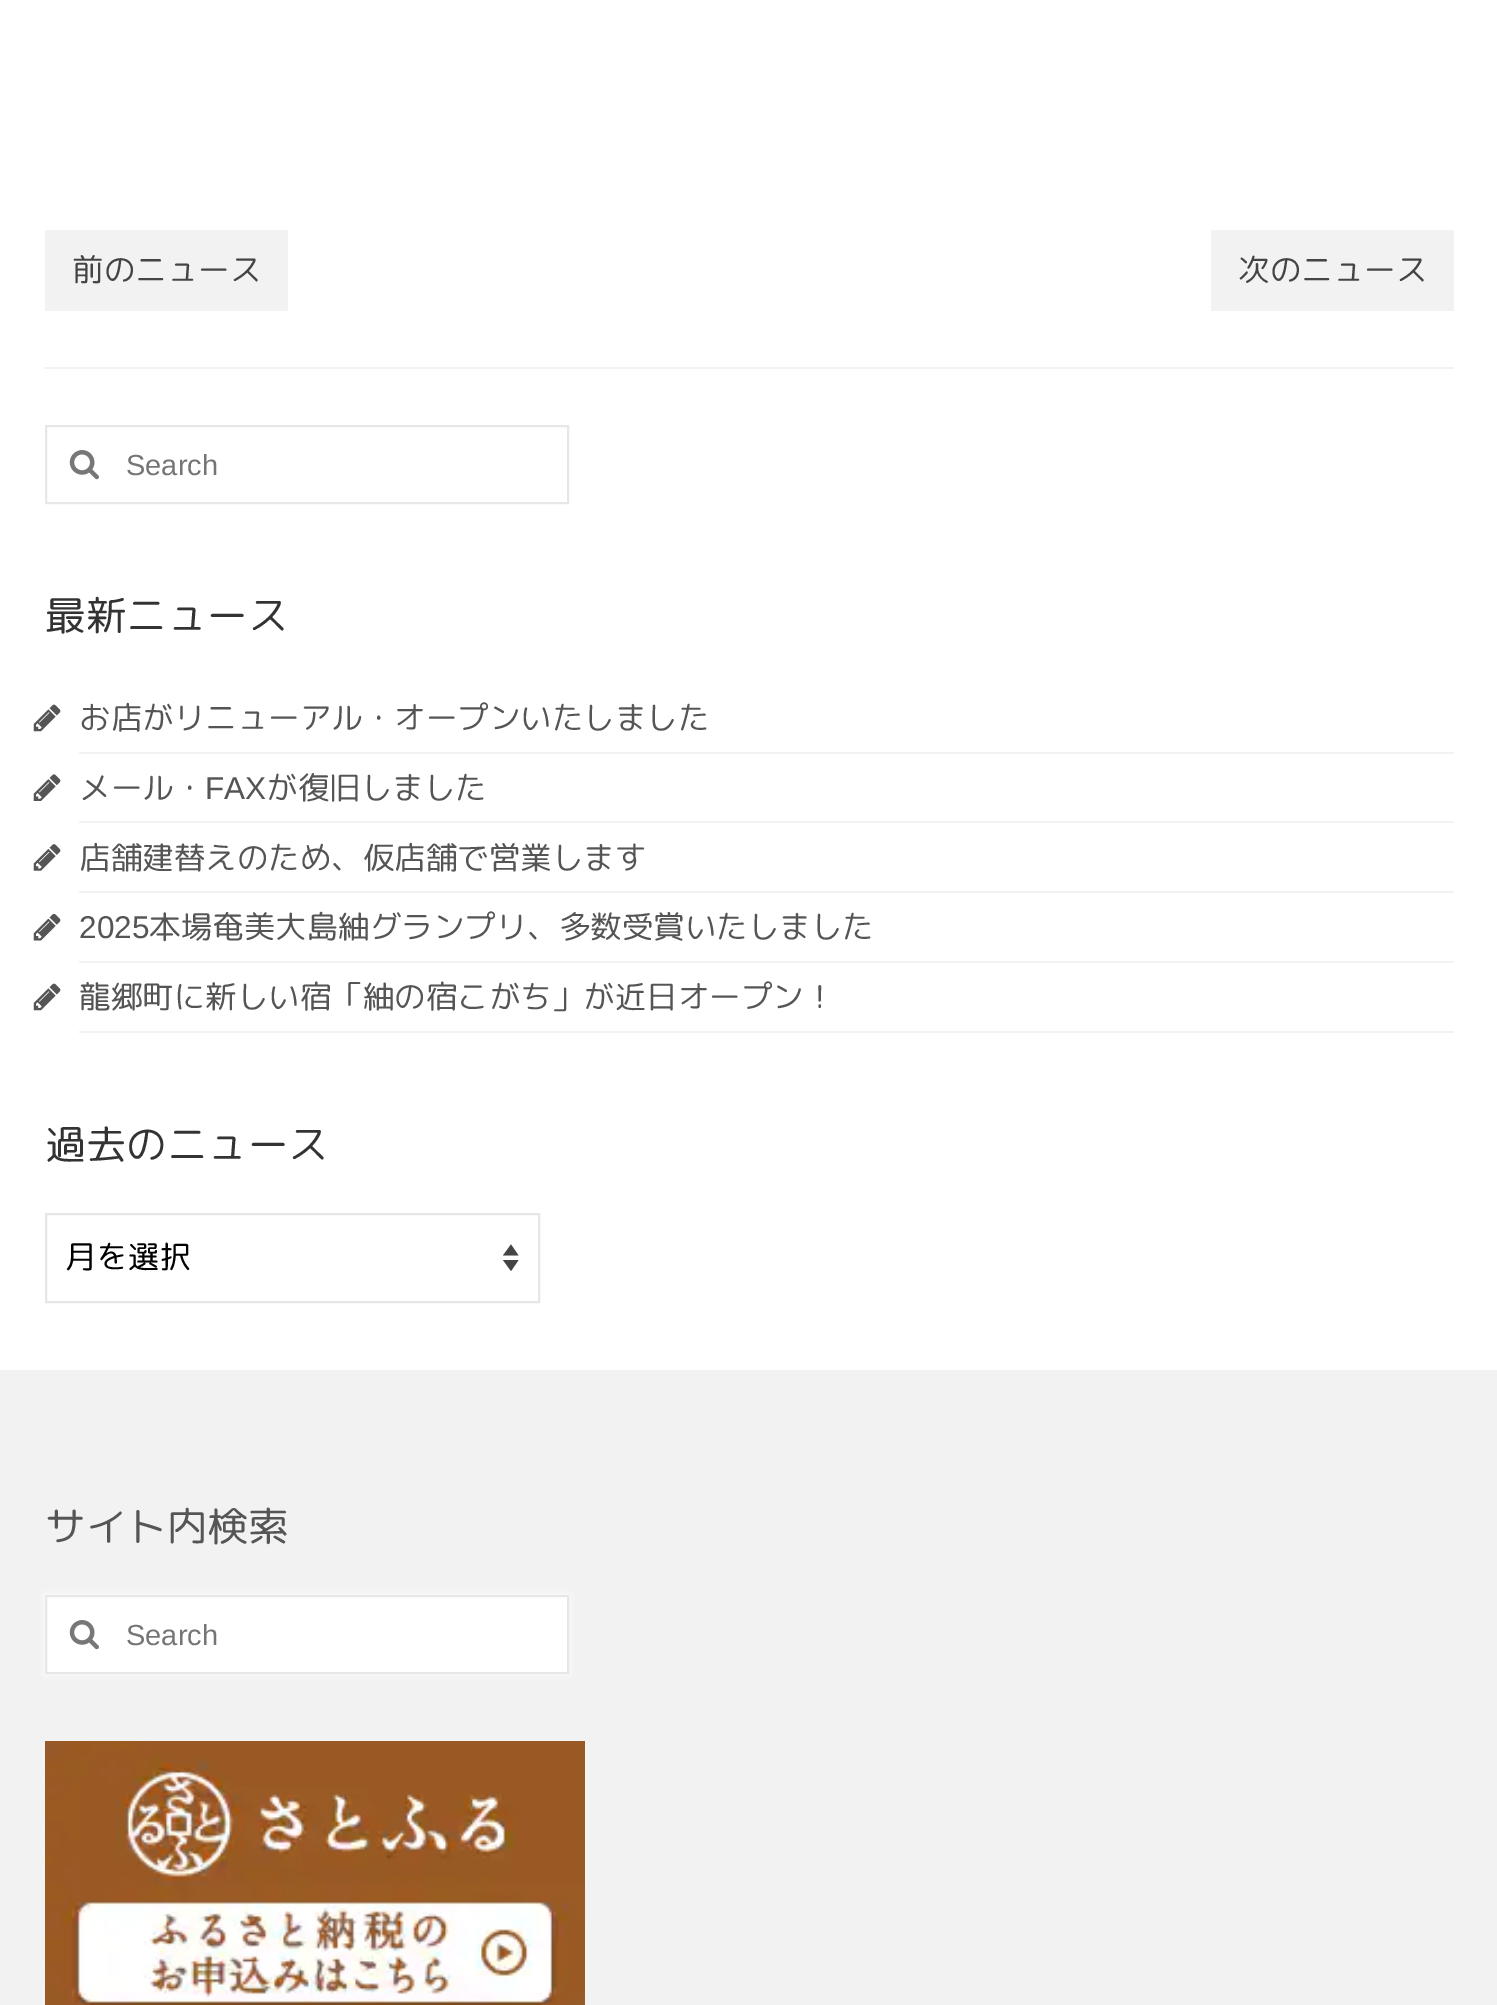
%!PS-Adobe-3.0
%%BoundingBox: 0 0 1497 2005
%%LanguageLevel: 3
%%Pages: 1
%%EndComments
%%BeginProlog
/setink { dup -16 bitshift 255 div exch dup -8 bitshift 255 and 255 div exch 255 and 255 div setrgbcolor } def
/usefont { [ exch dup neg 0 0 3 -1 roll 0 0 ] selectfont } def
/setalpha { dup .setfillconstantalpha .setstrokeconstantalpha } def
/rrect { 5 dict begin { /r /h /w /y /x } { exch def } forall
  x r add y moveto x w add y 2 copy h add r arct x w add y h add x 1 index r arct
  x y h add x y r arct x y 2 copy exch w add exch r arct closepath end } def
/softshadow { 12 dict begin { /a /b /q /h /w /y /x } { exch def } forall gsave /was 0 def
  9 -2 -9 { dup b mul 4 div /e exch def 1 sub .425 mul 2.718 exch exp 1 add a .99 .min exch div /now exch def
    1 1 now sub 1 was sub div sub setalpha /was now def
    w h .min e 2 mul add 0 gt { x e sub y e sub w e 2 mul add h e 2 mul add
      q e add b .6 mul add w h .min 2 div e add .min 0 .max rrect fill } if } for grestore end } def
/drawimage { 5 dict begin { /h /w /y /x /name } { exch def } forall
  gsave x y translate w h scale
  w h 8 [w 0 0 h 0 0] name (r) file false 3 colorimage grestore end } def
%%EndProlog
%%BeginSetup
<< /PageSize [1497 2005] /PageUsesTransparency true >> setpagedevice
%%EndSetup
%%Page: 1 1
0 .pushpdf14devicefilter
0 2005 translate 1 -1 scale
4 setmiterlimit
16#FFFFFF setink
0 0 1497 2005 rectfill
16#F2F2F2 setink
45 367 1409 2 rectfill
45 230 243 81 rectfill
/RoundedMplus1c-Regular 31.5 usefont
16#444444 setink
72 281 moveto (前のニュース) show
16#F2F2F2 setink
1211 230 243 81 rectfill
16#444444 setink
1238 281 moveto (次のニュース) show
16#E7E7E7 setink
2 setlinewidth
46 426 522 77 rectstroke
(img1.raw) 69 450 30 30 drawimage
/LiberationSans-Regular 29 usefont
16#757575 setink
126 475 moveto (Search) show
/RoundedMplus1c-Regular 40.5 usefont
16#333333 setink
45 630 moveto (最新ニュース) show
16#F2F2F2 setink
79 752 1375 2 rectfill
(img2.raw) 33 704 28 28 drawimage
/RoundedMplus1c-Regular 31.5 usefont
16#555555 setink
79 729 moveto (お店がリニューアル・オープンいたしました) show
16#F2F2F2 setink
79 821 1375 2 rectfill
(img3.raw) 33 774 28 27 drawimage
16#555555 setink
79 799 moveto (メール・) show
/LiberationSans-Regular 31.5 usefont
205 799 moveto (FAX) show
/RoundedMplus1c-Regular 31.5 usefont
266 799 moveto (が復旧しました) show
16#F2F2F2 setink
79 891 1375 2 rectfill
(img4.raw) 33 844 28 27 drawimage
16#555555 setink
79 869 moveto (店舗建替えのため、仮店舗で営業します) show
16#F2F2F2 setink
79 961 1375 2 rectfill
(img5.raw) 33 913 28 28 drawimage
/LiberationSans-Regular 31.5 usefont
16#555555 setink
79 938 moveto (2025) show
/RoundedMplus1c-Regular 31.5 usefont
149 938 moveto (本場奄美大島紬グランプリ、多数受賞いたしました) show
16#F2F2F2 setink
79 1031 1375 2 rectfill
(img2.raw) 33 983 28 28 drawimage
16#555555 setink
79 1008 moveto (龍郷町に新しい宿「紬の宿こがち」が近日オープン！) show
/RoundedMplus1c-Regular 40.5 usefont
16#333333 setink
45 1159 moveto (過去のニュース) show
16#444444 setink
503 1255.5 moveto 511 1244.5 lineto 518.5 1255.5 lineto closepath 518.5 1260 moveto 511 1271 lineto 503 1260 lineto closepath fill
16#E6E6E6 setink
46 1214 493 88 rectstroke
/RoundedMplus1c-Regular 31.5 usefont
16#000000 setink
65 1268 moveto (月を選択) show
16#F2F2F2 setink
0 1370 1497 635 rectfill
/RoundedMplus1c-Regular 40.5 usefont
16#555555 setink
45 1541 moveto (サイト内検索) show
16#FFFFFF setink
45 1595 524 79 0 3.5 1 softshadow
46 1596 moveto 568 1596 lineto 568 1673 lineto 46 1673 lineto closepath gsave fill grestore
16#E7E7E7 setink
stroke
(img1.raw) 69 1620 30 30 drawimage
/LiberationSans-Regular 29 usefont
16#757575 setink
126 1645 moveto (Search) show
(img6.raw) 45 1741 540 264 drawimage
.poppdf14devicefilter showpage
%%EOF
